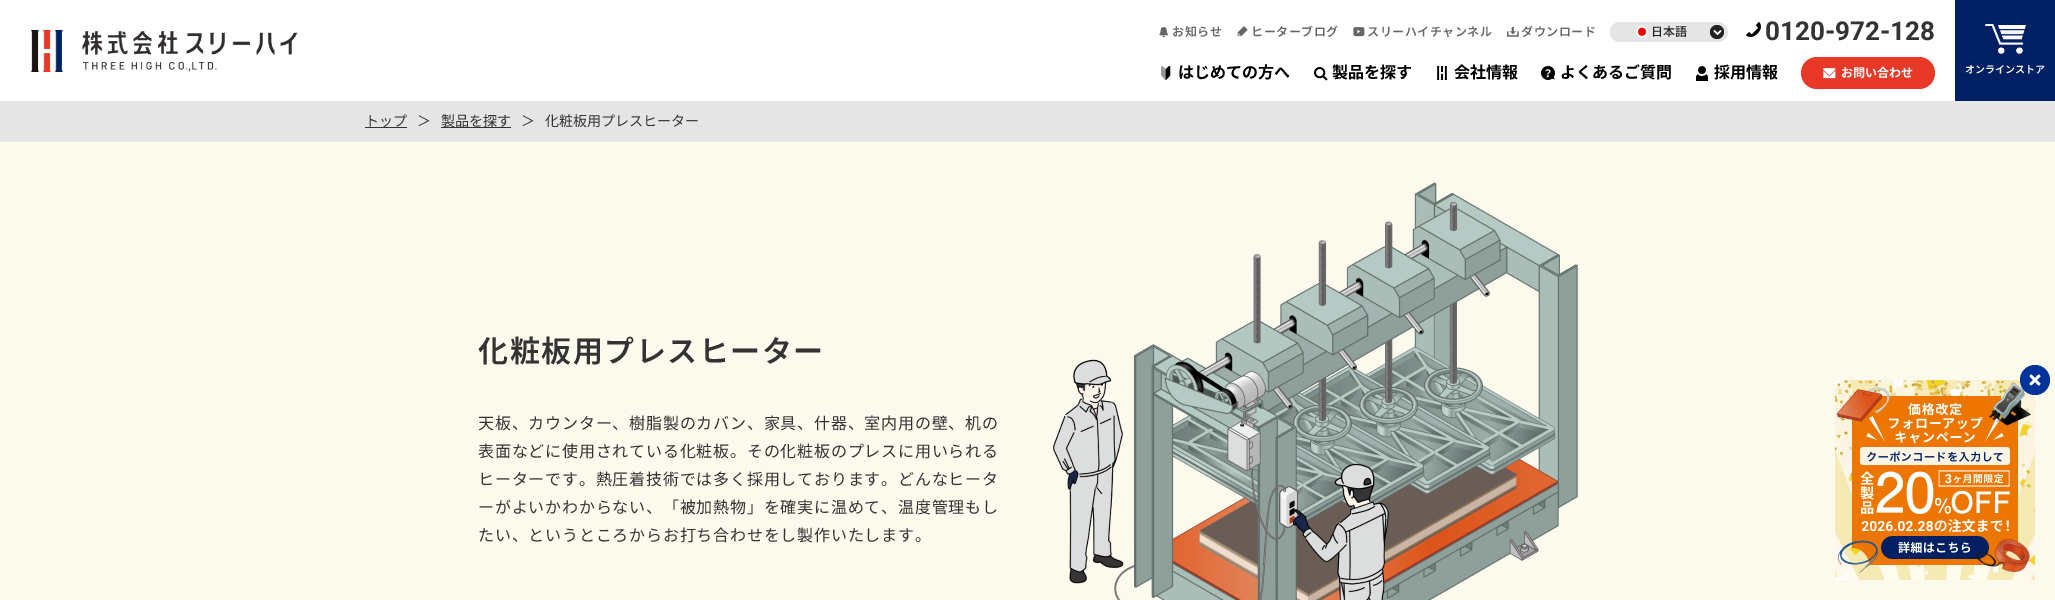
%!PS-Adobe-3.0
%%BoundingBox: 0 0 2055 600
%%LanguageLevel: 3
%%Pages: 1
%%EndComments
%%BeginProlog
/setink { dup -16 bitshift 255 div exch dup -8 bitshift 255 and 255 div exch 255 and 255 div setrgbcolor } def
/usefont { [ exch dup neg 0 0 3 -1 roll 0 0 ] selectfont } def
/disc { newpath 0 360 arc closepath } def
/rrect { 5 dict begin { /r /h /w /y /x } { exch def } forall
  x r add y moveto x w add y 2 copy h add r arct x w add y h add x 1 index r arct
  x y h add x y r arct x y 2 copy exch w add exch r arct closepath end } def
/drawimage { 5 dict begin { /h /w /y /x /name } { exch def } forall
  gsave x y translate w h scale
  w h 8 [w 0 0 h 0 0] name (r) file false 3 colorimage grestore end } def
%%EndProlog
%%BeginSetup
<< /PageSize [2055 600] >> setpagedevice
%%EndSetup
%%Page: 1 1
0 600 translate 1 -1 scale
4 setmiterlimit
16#FFFFFF setink
0 0 2055 600 rectfill
(img1.raw) 31 30 267 42 drawimage
(img2.raw) 1159 27 9 10 drawimage
/NotoSansJP-SemiBold 12 usefont
16#666666 setink
1172 36 moveto 0.5 0 (お知らせ) ashow
(img3.raw) 1237 26 11 11 drawimage
1251 36 moveto 0.5 0 (ヒーターブログ) ashow
(img4.raw) 1353 27 12 10 drawimage
1367 36 moveto 0.5 0 (スリーハイチャンネル) ashow
(img5.raw) 1507 27 12 10 drawimage
1521 36 moveto 0.5 0 (ダウンロード) ashow
16#E5E5E5 setink
1610 22 118 20 10 rrect fill
(img6.raw) 1636 26 12 12 drawimage
/NotoSansJP-Medium 12 usefont
16#222222 setink
1651 36 moveto (日本語) show
1717 32 7 disc fill
(img7.raw) 1713 30 9 6 drawimage
(img8.raw) 1746 22 15 15 drawimage
/Roboto-Bold 26 usefont
16#333333 setink
1765 40 moveto (0120-972-128) show
(img9.raw) 1161 66 10 15 drawimage
/NotoSansJP-Bold 16 usefont
16#000000 setink
1178 78 moveto (はじめての方へ) show
(img10.raw) 1314 67 14 14 drawimage
1332 78 moveto (製品を探す) show
(img11.raw) 1436 66 11 14 drawimage
1454 78 moveto (会社情報) show
(img12.raw) 1541 66 14 14 drawimage
1560 78 moveto (よくあるご質問) show
(img13.raw) 1696 66 12 15 drawimage
1714 78 moveto (採用情報) show
16#E83828 setink
1801 57 134 32 16 rrect fill
(img14.raw) 1823 68 13 11 drawimage
/NotoSansJP-Bold 12 usefont
16#FFFFFF setink
1841 77 moveto (お問い合わせ) show
16#002063 setink
1955 0 100 101 rectfill
(img15.raw) 1985 24 41 30 drawimage
/NotoSansJP-SemiBold 10 usefont
16#FFFFFF setink
1965 73 moveto (オンラインストア) show
16#E5E5E5 setink
0 101 2055 41 rectfill
16#333333 setink
365 127 42 1 rectfill
/NotoSansJP-Regular 14 usefont
365 126 moveto (トップ) show
417 126 moveto (＞) show
441 127 70 1 rectfill
[
    [(製品を探す) 441 126]
    [(＞) 521 126]
    [(化粧板用プレスヒーター) 545 126]
] { aload pop moveto show } forall
16#FCF9ED setink
0 142 2055 458 rectfill
/NotoSansJP-SemiBold 30 usefont
16#333333 setink
478 362 moveto 1.5 0 (化粧板用プレスヒーター) ashow
(img16.raw) 1053 182 525 418 drawimage
/NotoSansJP-Regular 16 usefont
478 429 moveto 0.8 0 (天板、カウンター、樹脂製のカバン、家具、什器、室内用の壁、机の) ashow
478 457 moveto 0.8 0 (表面などに使用されている化粧板。その化粧板のプレスに用いられる) ashow
478 485 moveto 0.8 0 (ヒーターです。熱圧着技術では多く採用しております。どんなヒータ) ashow
478 513 moveto 0.8 0 (ーがよいかわからない、「被加熱物」を確実に温めて、温度管理もし) ashow
478 541 moveto 0.8 0 (たい、というところからお打ち合わせをし製作いたします。) ashow
(img17.raw) 1835 380 200 200 drawimage
16#003399 setink
2035 380 15 disc fill
16#FFFFFF setink
2030 383 moveto 2036.5 376.5 lineto 2037.5 375.5 2039 373.5 2040 375.5 curveto 2040.5 376.5 lineto 2032 385 lineto 2030.5 386 2029 384 2030 383 curveto closepath fill
2032 375 moveto 2040.5 383.5 lineto 2040 384.5 lineto 2039 386.5 2037.5 384.5 2036.5 383.5 curveto 2030 377 lineto 2029 375.5 2031 374 2032 375 curveto closepath fill
showpage
%%EOF
